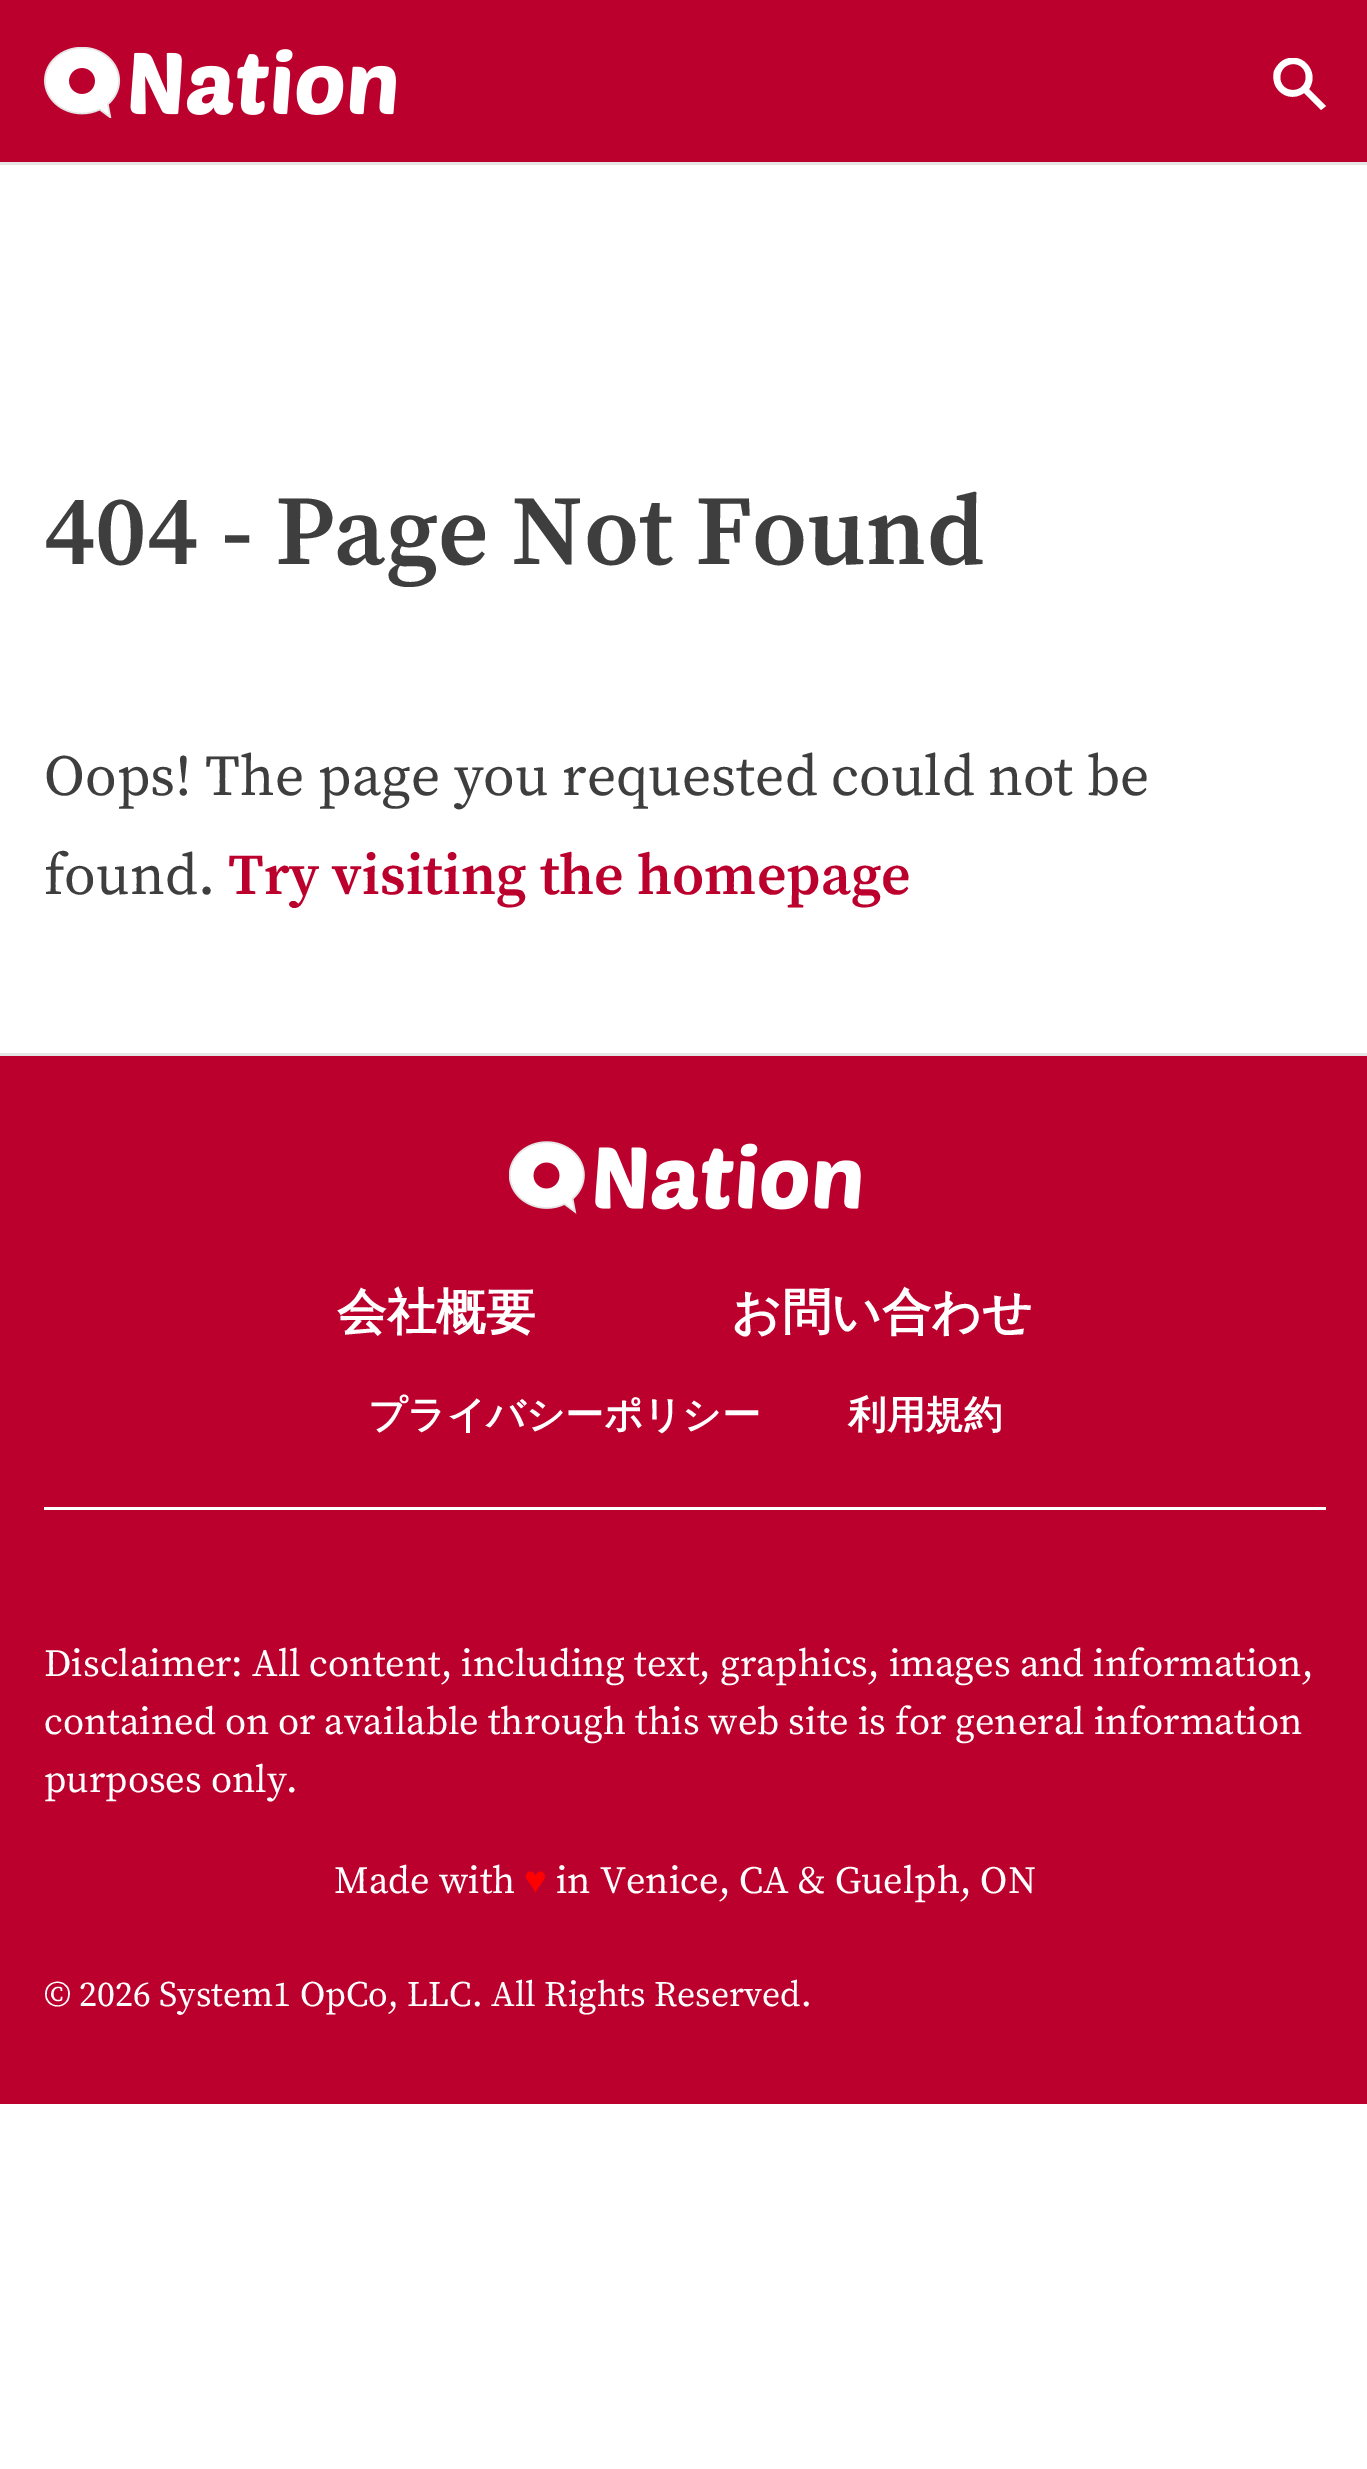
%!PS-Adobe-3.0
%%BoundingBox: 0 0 1367 2469
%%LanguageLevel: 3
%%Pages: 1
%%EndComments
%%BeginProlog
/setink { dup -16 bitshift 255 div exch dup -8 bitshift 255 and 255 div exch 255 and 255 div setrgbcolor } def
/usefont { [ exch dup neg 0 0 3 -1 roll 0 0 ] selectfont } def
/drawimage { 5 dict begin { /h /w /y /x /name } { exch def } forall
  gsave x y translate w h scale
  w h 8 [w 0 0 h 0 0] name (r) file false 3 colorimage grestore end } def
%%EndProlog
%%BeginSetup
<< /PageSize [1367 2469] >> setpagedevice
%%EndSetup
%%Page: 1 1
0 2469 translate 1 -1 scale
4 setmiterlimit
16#FFFFFF setink
0 0 1367 2469 rectfill
16#BC002D setink
0 0 1367 162 rectfill
16#E5E5E5 setink
0 162 1367 3 rectfill
(img1.raw) 44 47 352 71 drawimage
gsave
1273 58 53 52 rectclip
16#FFFFFF setink
1309 89 moveto 1326 106 lineto 1321 110 lineto 1304 93 lineto 1294 100 1282 97 1276 87 curveto 1273 82 1273 76 1274 71 curveto 1276 67 1278 64 1282 61 curveto 1300 49 1321 71 1309 89 curveto closepath 1293 90 moveto 1310 90 1310 64 1293 64 curveto 1276 65 1276 90 1293 90 curveto closepath fill
grestore
/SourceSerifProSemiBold-SemiBold 99 usefont
16#3E3E3E setink
44 564 moveto (404 - Page Not Found) show
/SourceSerifPro-Regular 57.75 usefont
44 795 moveto (Oops! The page you requested could not be) show
44 894 moveto (found.) show
/SourceSerifProSemiBold-SemiBold 57.75 usefont
16#BC002D setink
228 894 moveto (Try visiting the homepage) show
0 1056 1367 1048 rectfill
16#E5E5E5 setink
0 1053 1367 3 rectfill
(img2.raw) 509 1141 352 73 drawimage
/WenQuanYiZenHei-Bold 49.5 usefont
16#FFFFFF setink
337 1329 moveto (会社概要) show
731 1329 moveto (お問い合わせ) show
/WenQuanYiZenHei-Bold 38.5 usefont
368 1428 moveto (プライバシーポリシー) show
848 1428 moveto (利用規約) show
44 1507 1282 3 rectfill
/SourceSerifPro-Regular 38.5 usefont
[
    [(Disclaimer: All content, including text, graphics, images and information,) 44 1676]
    [(contained on or available through this web site is for general information) 44 1734]
    [(purposes only.) 44 1792]
    [(Made with) 334 1893]
] { aload pop moveto show } forall
/LiberationSerif-Regular 38.5 usefont
16#FF0000 setink
524 1893 moveto (♥) show
/SourceSerifPro-Regular 38.5 usefont
16#FFFFFF setink
556 1893 moveto (in Venice, CA & Guelph, ON) show
/SourceSerifPro-Regular 35.75 usefont
44 2006 moveto (© 2026 System1 OpCo, LLC. All Rights Reserved.) show
showpage
%%EOF
